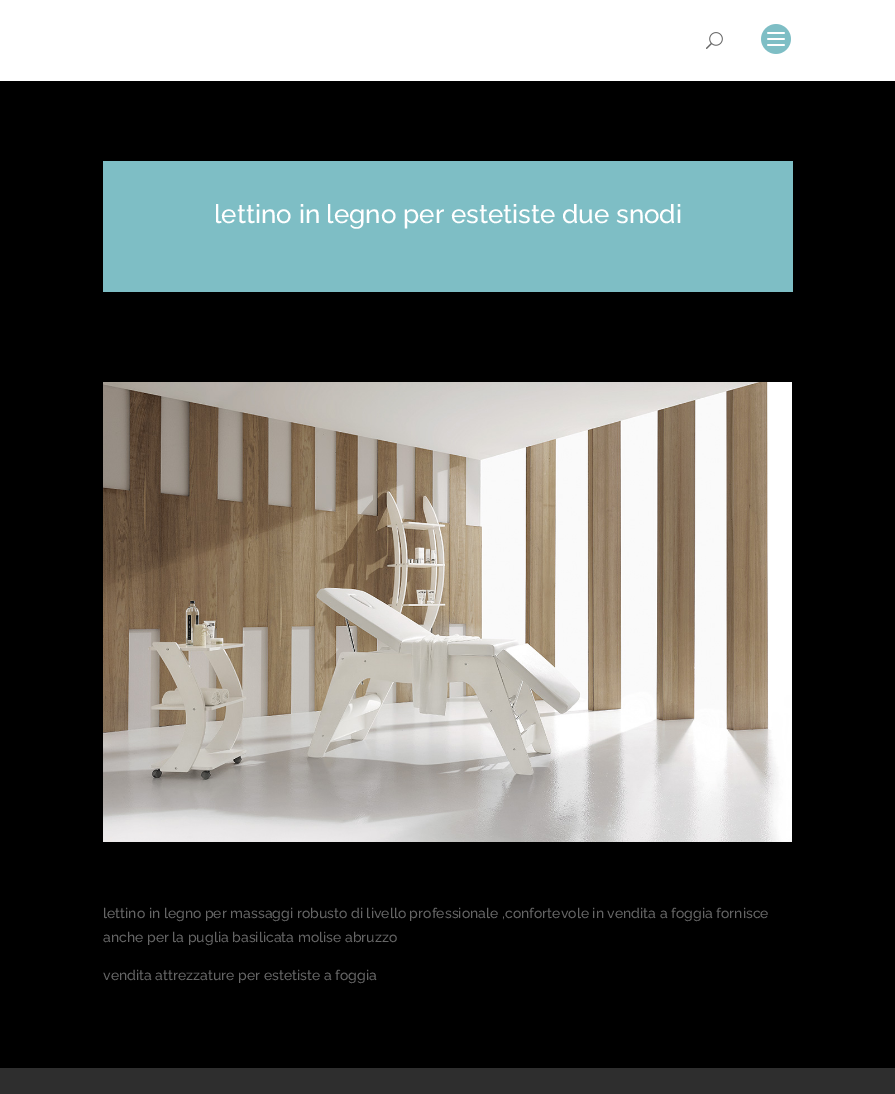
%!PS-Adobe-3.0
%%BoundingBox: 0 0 895 1094
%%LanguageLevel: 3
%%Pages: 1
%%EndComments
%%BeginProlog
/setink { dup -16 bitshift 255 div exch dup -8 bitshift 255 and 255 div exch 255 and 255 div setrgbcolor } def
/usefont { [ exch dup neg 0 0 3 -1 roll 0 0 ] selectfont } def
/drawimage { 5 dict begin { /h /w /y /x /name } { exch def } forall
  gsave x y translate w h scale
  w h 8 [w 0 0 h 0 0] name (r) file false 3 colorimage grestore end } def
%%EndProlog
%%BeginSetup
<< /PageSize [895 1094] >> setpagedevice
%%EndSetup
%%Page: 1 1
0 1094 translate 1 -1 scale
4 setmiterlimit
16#FFFFFF setink
0 0 895 1094 rectfill
(img1.raw) 706 32 17 17 drawimage
(img2.raw) 761 24 30 30 drawimage
16#000000 setink
0 81 895 987 rectfill
16#7EBEC5 setink
103 161 690 131 rectfill
/Raleway-Medium 26 usefont
16#FFFFFF setink
214 223 moveto (lettino in legno per estetiste due snodi) show
(img3.raw) 103 382 689 460 drawimage
/Raleway-Medium 14 usefont
16#666666 setink
[
    [(lettino in legno per massaggi robusto di livello professionale ,confortevole in vendita a foggia fornisce) 103 918]
    [(anche per la puglia basilicata molise abruzzo) 103 942]
    [(vendita attrezzature per estetiste a foggia) 103 980]
] { aload pop moveto show } forall
16#2E2E2E setink
0 1068 895 26 rectfill
showpage
%%EOF
